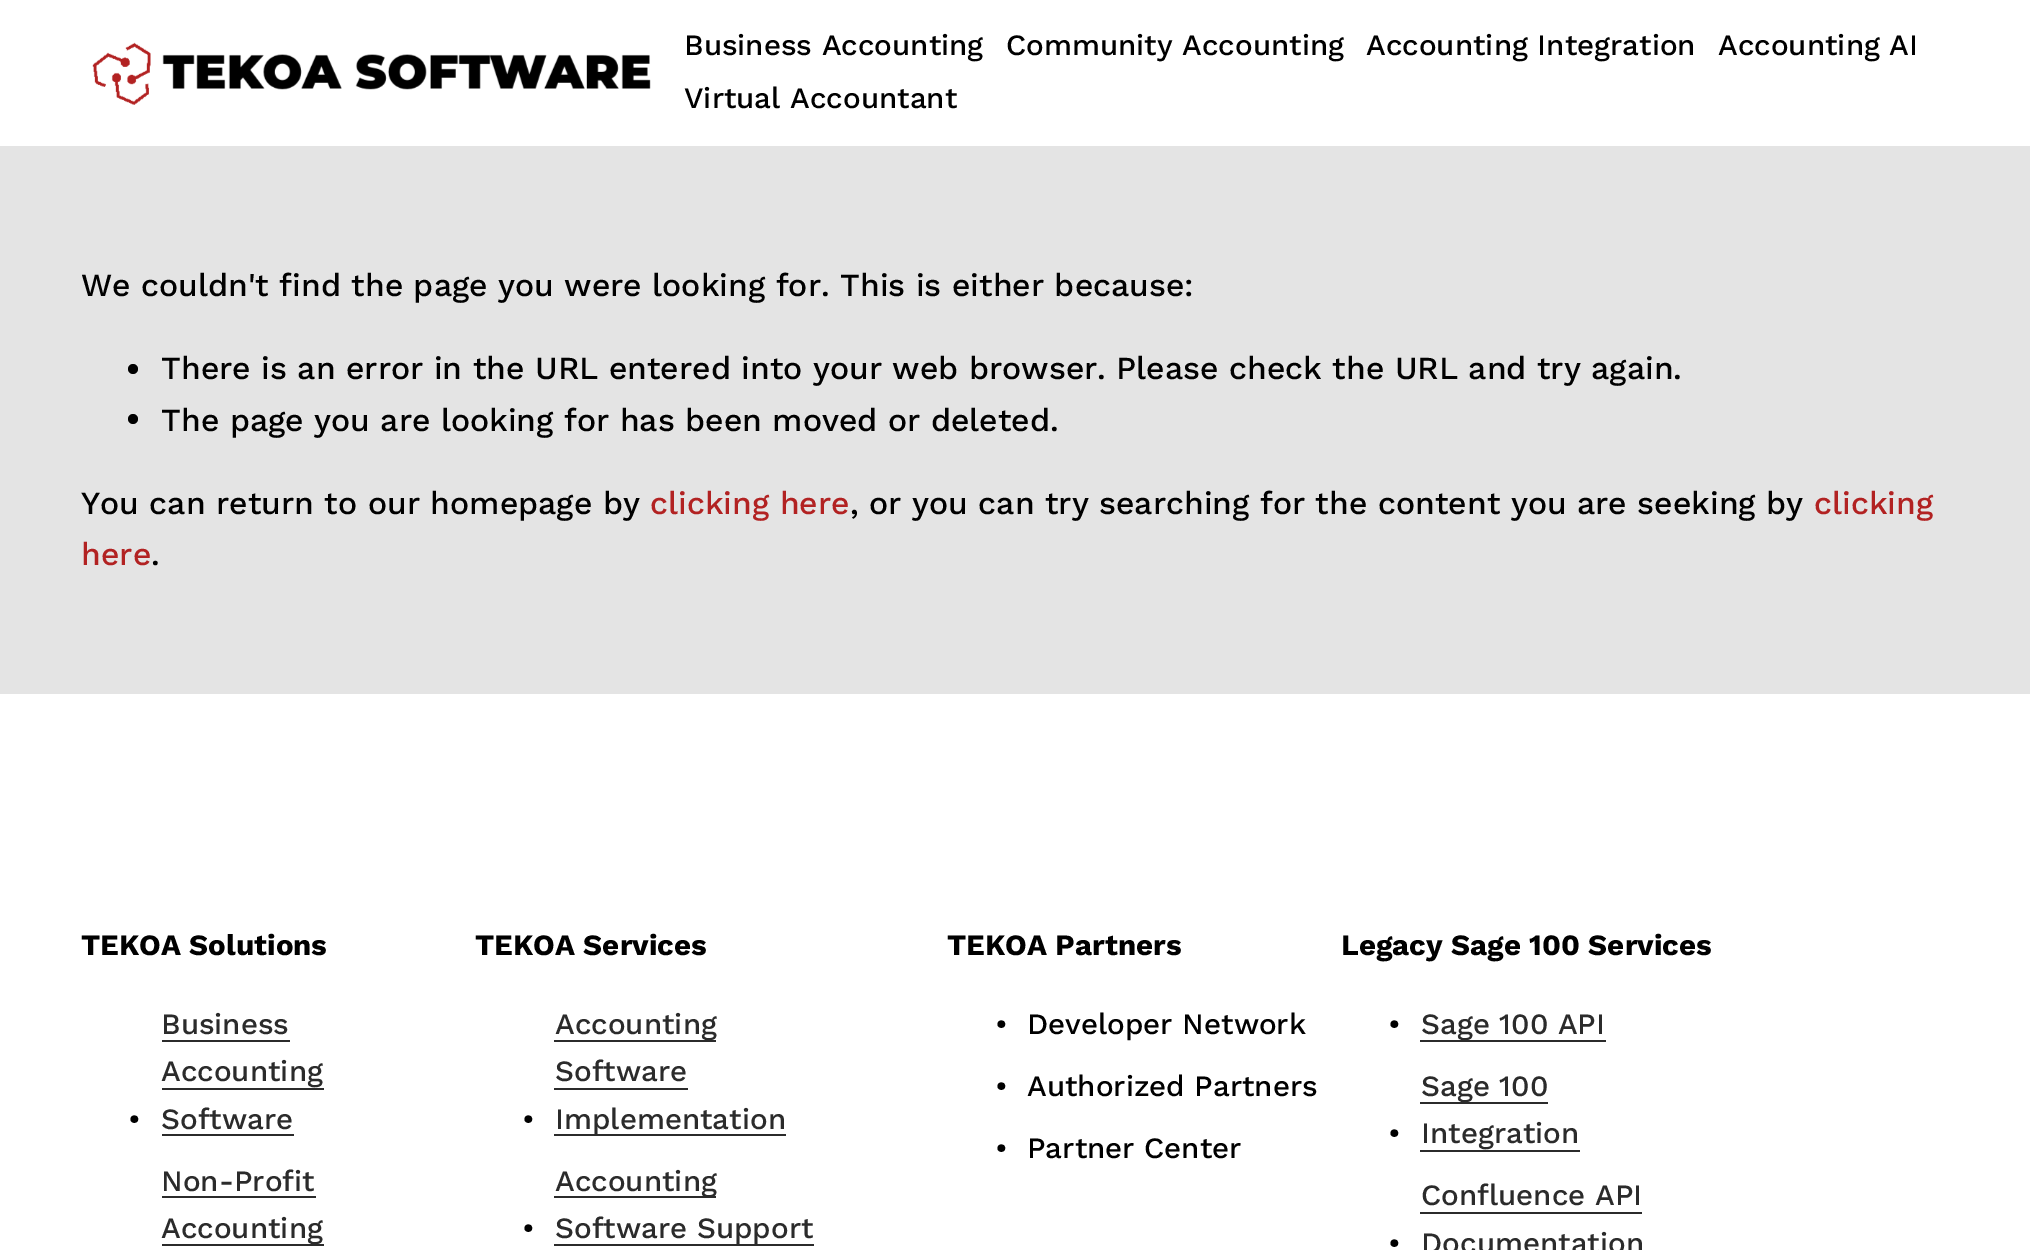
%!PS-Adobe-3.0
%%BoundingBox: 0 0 2030 1250
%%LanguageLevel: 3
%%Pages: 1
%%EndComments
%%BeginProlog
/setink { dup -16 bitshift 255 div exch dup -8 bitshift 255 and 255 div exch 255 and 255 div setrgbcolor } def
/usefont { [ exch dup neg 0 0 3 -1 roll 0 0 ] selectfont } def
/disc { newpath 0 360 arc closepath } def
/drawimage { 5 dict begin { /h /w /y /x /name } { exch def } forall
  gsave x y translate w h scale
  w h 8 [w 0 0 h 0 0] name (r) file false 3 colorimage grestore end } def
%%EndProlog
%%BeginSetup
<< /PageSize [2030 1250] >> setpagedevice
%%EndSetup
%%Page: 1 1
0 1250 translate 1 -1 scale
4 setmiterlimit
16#E4E4E4 setink
0 0 2030 1250 rectfill
16#FFFFFF setink
0 0 2030 146 rectfill
(img1.raw) 92 42 559 63 drawimage
/WorkSans-Medium 29.5 usefont
16#000000 setink
[
    [(Business Accounting) 684 55]
    [(Community Accounting) 1006 55]
    [(Accounting Integration) 1366 55]
    [(Accounting AI) 1718 55]
    [(Virtual Accountant) 684 108]
] { aload pop moveto show } forall
/WorkSans-Medium 32 usefont
81 296 moveto (We couldn't find the page you were looking for. This is either because:) show
133 369 5 disc fill
161 379 moveto (There is an error in the URL entered into your web browser. Please check the URL and try again.) show
133 419 5 disc fill
161 431 moveto (The page you are looking for has been moved or deleted.) show
81 514 moveto (You can return to our homepage by) show
16#B22222 setink
650 514 moveto (clicking here) show
16#000000 setink
850 514 moveto (, or you can try searching for the content you are seeking by) show
16#B22222 setink
1814 514 moveto (clicking) show
81 565 moveto (here) show
16#000000 setink
151 565 moveto (.) show
16#FFFFFF setink
0 694 2030 556 rectfill
/WorkSans-Bold 29.5 usefont
16#000000 setink
81 955 moveto (TEKOA Solutions) show
/WorkSans-Medium 29.5 usefont
128 1129 moveto (•) show
16#2B2B2B setink
161 1034 moveto (Business) show
162 1040 128 2 rectfill
161 1081 moveto (Accounting) show
162 1088 162 2 rectfill
161 1129 moveto (Software) show
162 1134 132 2 rectfill
161 1191 moveto (Non-Profit) show
162 1196 154 2 rectfill
162 1244 162 2 rectfill
161 1238 moveto (Accounting) show
/WorkSans-Bold 29.5 usefont
16#000000 setink
475 955 moveto (TEKOA Services) show
/WorkSans-Medium 29.5 usefont
522 1129 moveto (•) show
16#2B2B2B setink
554 1040 162 2 rectfill
555 1034 moveto (Accounting) show
555 1081 moveto (Software) show
554 1088 134 2 rectfill
554 1134 232 2 rectfill
555 1129 moveto (Implementation) show
16#000000 setink
522 1238 moveto (•) show
16#2B2B2B setink
554 1196 162 2 rectfill
555 1191 moveto (Accounting) show
554 1244 260 2 rectfill
555 1238 moveto (Software Support) show
/WorkSans-Bold 29.5 usefont
16#000000 setink
947 955 moveto (TEKOA Partners) show
/WorkSans-Medium 29.5 usefont
[
    [(•) 995 1034]
    [(Developer Network) 1027 1034]
    [(•) 995 1096]
    [(Authorized Partners) 1027 1096]
    [(•) 995 1158]
    [(Partner Center) 1027 1158]
] { aload pop moveto show } forall
/WorkSans-Bold 29.5 usefont
1341 955 moveto (Legacy Sage 100 Services) show
/WorkSans-Medium 29.5 usefont
1388 1034 moveto (•) show
16#2B2B2B setink
1420 1040 186 2 rectfill
1421 1034 moveto (Sage 100 API) show
16#000000 setink
1388 1143 moveto (•) show
16#2B2B2B setink
1420 1102 128 2 rectfill
1421 1096 moveto (Sage 100) show
1421 1143 moveto (Integration) show
1420 1150 160 2 rectfill
16#000000 setink
1388 1253 moveto (•) show
16#2B2B2B setink
1421 1205 moveto (Confluence API) show
1420 1212 222 2 rectfill
1421 1253 moveto (Documentation) show
showpage
%%EOF
